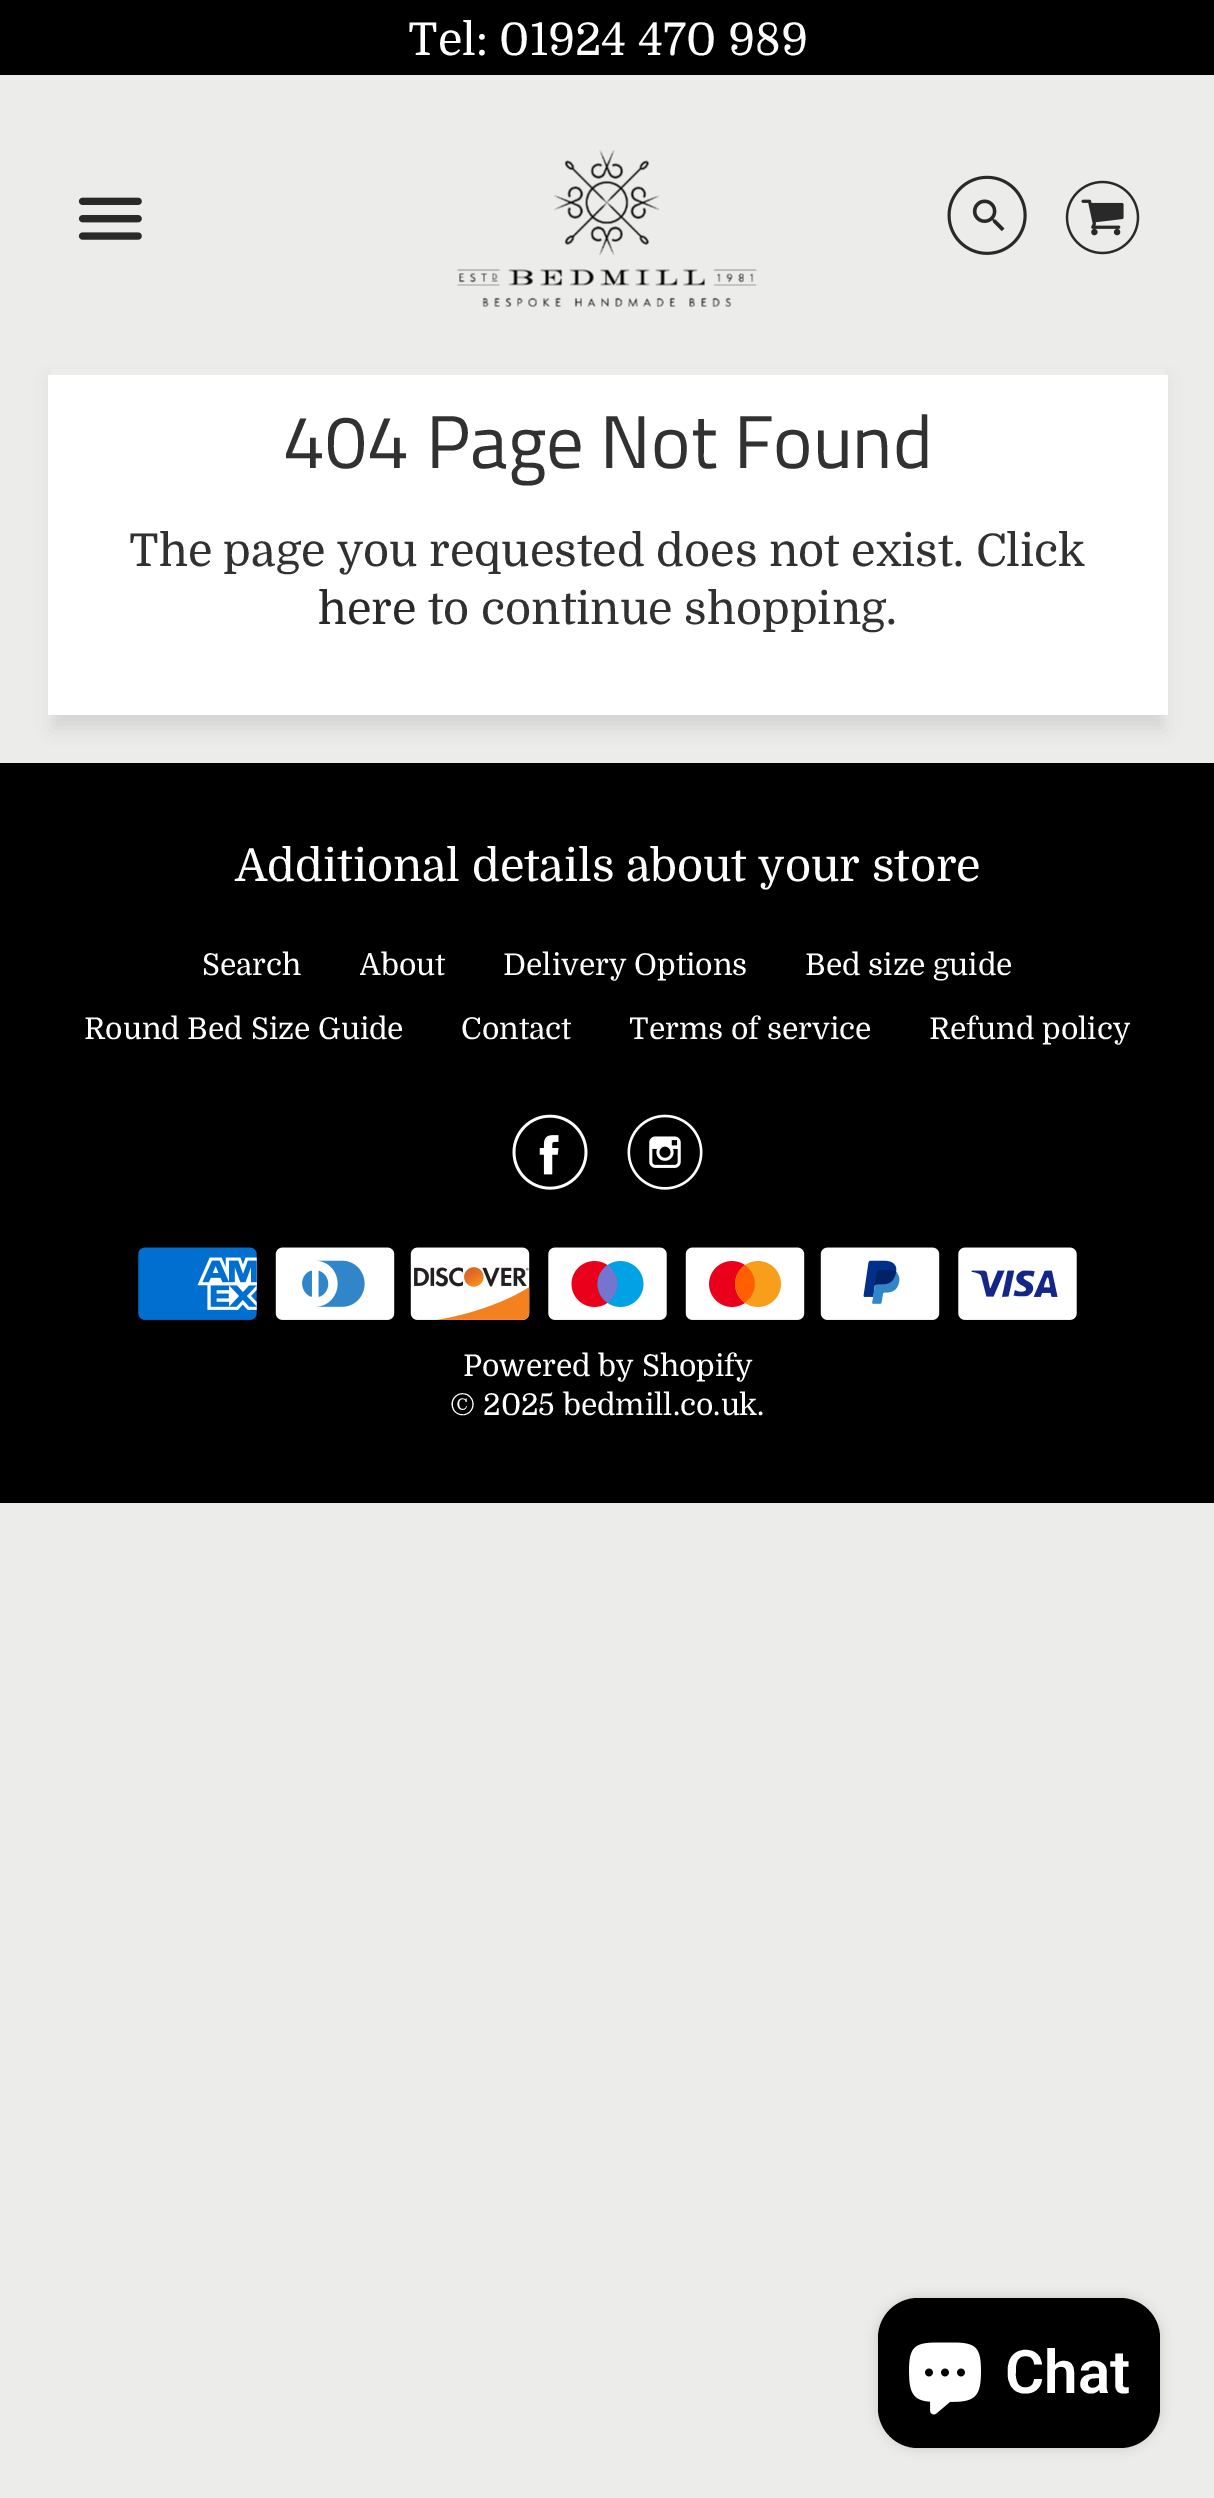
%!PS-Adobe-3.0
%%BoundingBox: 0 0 1214 2498
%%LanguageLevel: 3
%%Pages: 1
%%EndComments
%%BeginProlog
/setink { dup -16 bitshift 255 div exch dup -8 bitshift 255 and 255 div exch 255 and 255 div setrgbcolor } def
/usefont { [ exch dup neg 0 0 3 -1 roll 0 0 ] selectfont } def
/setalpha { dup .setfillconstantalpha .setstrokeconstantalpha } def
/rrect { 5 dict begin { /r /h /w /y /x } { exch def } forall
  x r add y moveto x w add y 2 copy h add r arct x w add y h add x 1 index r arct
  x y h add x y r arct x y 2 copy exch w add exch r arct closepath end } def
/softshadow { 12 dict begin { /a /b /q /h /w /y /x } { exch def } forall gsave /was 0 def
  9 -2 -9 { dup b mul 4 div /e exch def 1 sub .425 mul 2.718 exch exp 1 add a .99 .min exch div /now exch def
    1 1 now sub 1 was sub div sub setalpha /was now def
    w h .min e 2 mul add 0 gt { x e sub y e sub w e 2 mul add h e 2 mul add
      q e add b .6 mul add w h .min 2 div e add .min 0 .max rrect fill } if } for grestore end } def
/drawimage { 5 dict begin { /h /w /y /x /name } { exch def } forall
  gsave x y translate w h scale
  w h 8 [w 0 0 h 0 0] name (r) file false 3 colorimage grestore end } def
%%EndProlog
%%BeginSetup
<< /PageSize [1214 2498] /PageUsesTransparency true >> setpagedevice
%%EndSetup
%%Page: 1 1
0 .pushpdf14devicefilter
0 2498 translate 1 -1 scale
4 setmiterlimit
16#ECECEB setink
0 0 1214 2498 rectfill
16#000000 setink
0 0 1214 75 rectfill
/Domine-Regular 45 usefont
16#FFFFFF setink
408 55 moveto (Tel: 01924 470 989) show
16#A3A3A3 setink
53 380 1110 348 0 9 0.32 softshadow
16#ECECEB setink
51 369 1114 6 rectfill
(img1.raw) 78 197 64 43 drawimage
(img2.raw) 457 150 300 157 drawimage
(img3.raw) 947 175 80 80 drawimage
(img4.raw) 1065 180 75 75 drawimage
16#FFFFFF setink
48 375 1120 340 rectfill
/TitilliumWeb-Regular 75 usefont
16#313131 setink
283 468 moveto (404 Page Not Found) show
/Domine-Regular 45 usefont
129 566 moveto (The page you requested does not exist. Click) show
16#292929 setink
318 624 moveto (here) show
16#313131 setink
428 624 moveto (to continue shopping.) show
16#000000 setink
0 763 1214 740 rectfill
16#FFFFFF setink
235 881 moveto (Additional details about your store) show
/Domine-Regular 30 usefont
202 975 moveto (Search) show
gsave
360 948 85 37 rectclip
359 975 moveto (About) show
grestore
[
    [(Delivery Options) 503 975]
    [(Bed size guide) 805 975]
    [(Round Bed Size Guide) 84 1039]
    [(Contact) 461 1039]
    [(Terms of service) 629 1039]
] { aload pop moveto show } forall
gsave
930 1013 200 37 rectclip
929 1039 moveto (Refund policy) show
grestore
(img5.raw) 512 1114 76 76 drawimage
(img6.raw) 627 1114 76 76 drawimage
(img7.raw) 138 1247 119 73 drawimage
(img8.raw) 275 1247 120 73 drawimage
(img9.raw) 410 1247 120 73 drawimage
(img10.raw) 548 1247 119 73 drawimage
(img11.raw) 685 1247 120 73 drawimage
(img12.raw) 820 1247 120 73 drawimage
(img13.raw) 958 1247 119 73 drawimage
463 1376 moveto (Powered by Shopify) show
450 1415 moveto (© 2025 bedmill.co.uk.) show
16#000000 setink
878 2298 282 150 40 6 0.15 softshadow
878 2298 282 150 40 rrect fill
(img14.raw) 909 2342 72 73 drawimage
/Roboto-SemiBold 60 usefont
16#FFFFFF setink
1005 2393 moveto (Chat) show
.poppdf14devicefilter showpage
%%EOF
